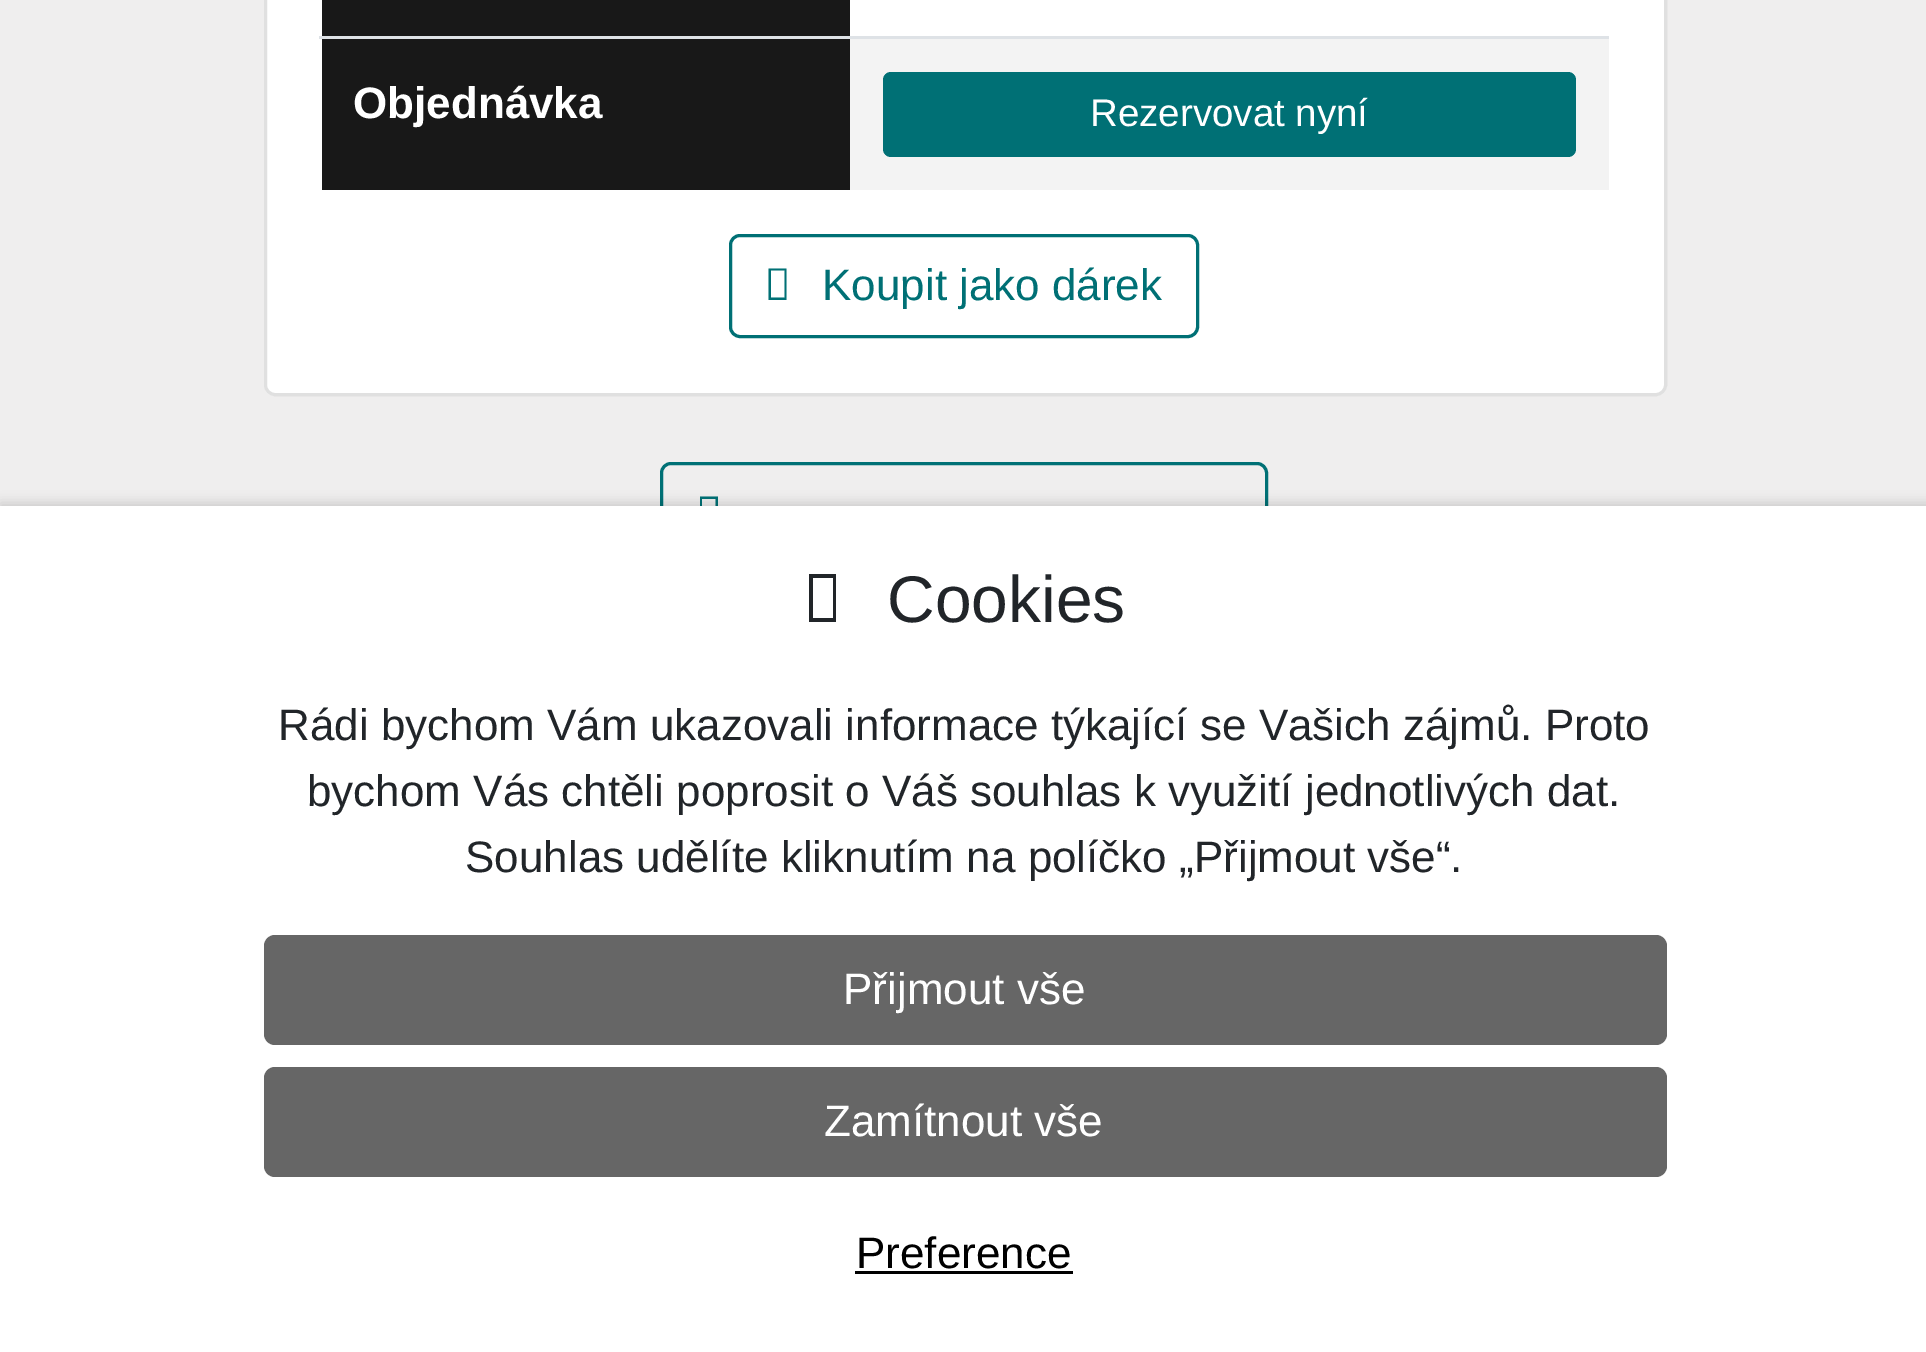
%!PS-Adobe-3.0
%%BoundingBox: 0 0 1926 1352
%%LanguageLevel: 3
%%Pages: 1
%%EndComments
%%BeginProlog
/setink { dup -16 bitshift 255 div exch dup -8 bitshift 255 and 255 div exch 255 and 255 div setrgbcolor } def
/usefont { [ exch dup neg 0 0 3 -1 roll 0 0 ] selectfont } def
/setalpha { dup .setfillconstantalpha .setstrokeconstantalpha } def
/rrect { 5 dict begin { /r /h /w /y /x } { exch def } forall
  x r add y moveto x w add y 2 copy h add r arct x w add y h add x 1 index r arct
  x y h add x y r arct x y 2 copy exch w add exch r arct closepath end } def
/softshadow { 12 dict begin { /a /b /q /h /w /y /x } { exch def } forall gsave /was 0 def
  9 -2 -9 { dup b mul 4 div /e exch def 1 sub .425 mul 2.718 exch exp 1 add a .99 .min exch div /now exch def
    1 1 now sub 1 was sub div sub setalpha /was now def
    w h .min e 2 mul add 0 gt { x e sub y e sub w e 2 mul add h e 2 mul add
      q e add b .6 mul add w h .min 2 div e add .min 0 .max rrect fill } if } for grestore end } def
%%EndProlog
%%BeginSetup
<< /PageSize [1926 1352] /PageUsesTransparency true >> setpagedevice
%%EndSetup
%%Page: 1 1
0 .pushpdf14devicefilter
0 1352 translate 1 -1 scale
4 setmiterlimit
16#EFEEEE setink
0 0 1926 1352 rectfill
16#FFFFFF setink
264 -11 1403 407 11 rrect fill
0.12 setalpha
16#000000 setink
3 setlinewidth
265.5 -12.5 1400 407 9.5 rrect stroke
1 setalpha
[
    [322 0 528 36 16#181818]
    [850 39 759 151 16#F3F3F3]
    [322 39 528 151 16#181818]
] { aload pop setink rectfill } forall
/LiberationSans-Bold 44 usefont
16#FFFFFF setink
353 118 moveto (Objednávka) show
16#DEE2E6 setink
319 36 1290 3 rectfill
16#007075 setink
883 72 693 85 8 rrect fill
/LiberationSans-Regular 38.5 usefont
16#FFFFFF setink
1090 126 moveto (Rezervovat nyní) show
16#007075 setink
730.5 235.5 467 101 9.5 rrect stroke
768.5 300 moveto 768.5 268.5 lineto 786.5 268.5 lineto 786.5 300 lineto closepath 771 297.5 moveto 784.5 297.5 lineto 784.5 270.5 lineto 771 270.5 lineto closepath fill
/LiberationSans-Regular 44 usefont
822 300 moveto (Koupit jako dárek) show
661.5 463.5 605 102 9.5 rrect stroke
700 528 moveto 700 496.5 lineto 718 496.5 lineto 718 528 lineto closepath 702 526 moveto 715.5 526 lineto 715.5 499 lineto 702 499 lineto closepath fill
16#000000 setink
0 503 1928 847 0 5.5 0.15 softshadow
16#FFFFFF setink
0 506 1926 846 rectfill
16#212529 setink
809 622 moveto 809 574 lineto 836 574 lineto 836 622 lineto closepath 813 618 moveto 833 618 lineto 833 578 lineto 813 578 lineto closepath fill
/LiberationSans-Regular 66 usefont
887 622 moveto (Cookies) show
/LiberationSans-Regular 44 usefont
[
    [(Rádi bychom Vám ukazovali informace týkající se Vašich zájmů. Proto) 278 740]
    [(bychom Vás chtěli poprosit o Váš souhlas k využití jednotlivých dat.) 307 806]
    [(Souhlas udělíte kliknutím na políčko „Přijmout vše“.) 465 872]
] { aload pop moveto show } forall
16#666666 setink
264 935 1403 110 11 rrect fill
16#FFFFFF setink
843 1004 moveto (Přijmout vše) show
16#666666 setink
264 1067 1403 110 11 rrect fill
16#FFFFFF setink
824 1136 moveto (Zamítnout vše) show
16#000000 setink
856 1268 moveto (Preference) show
855 1271 218 3 rectfill
.poppdf14devicefilter showpage
%%EOF
